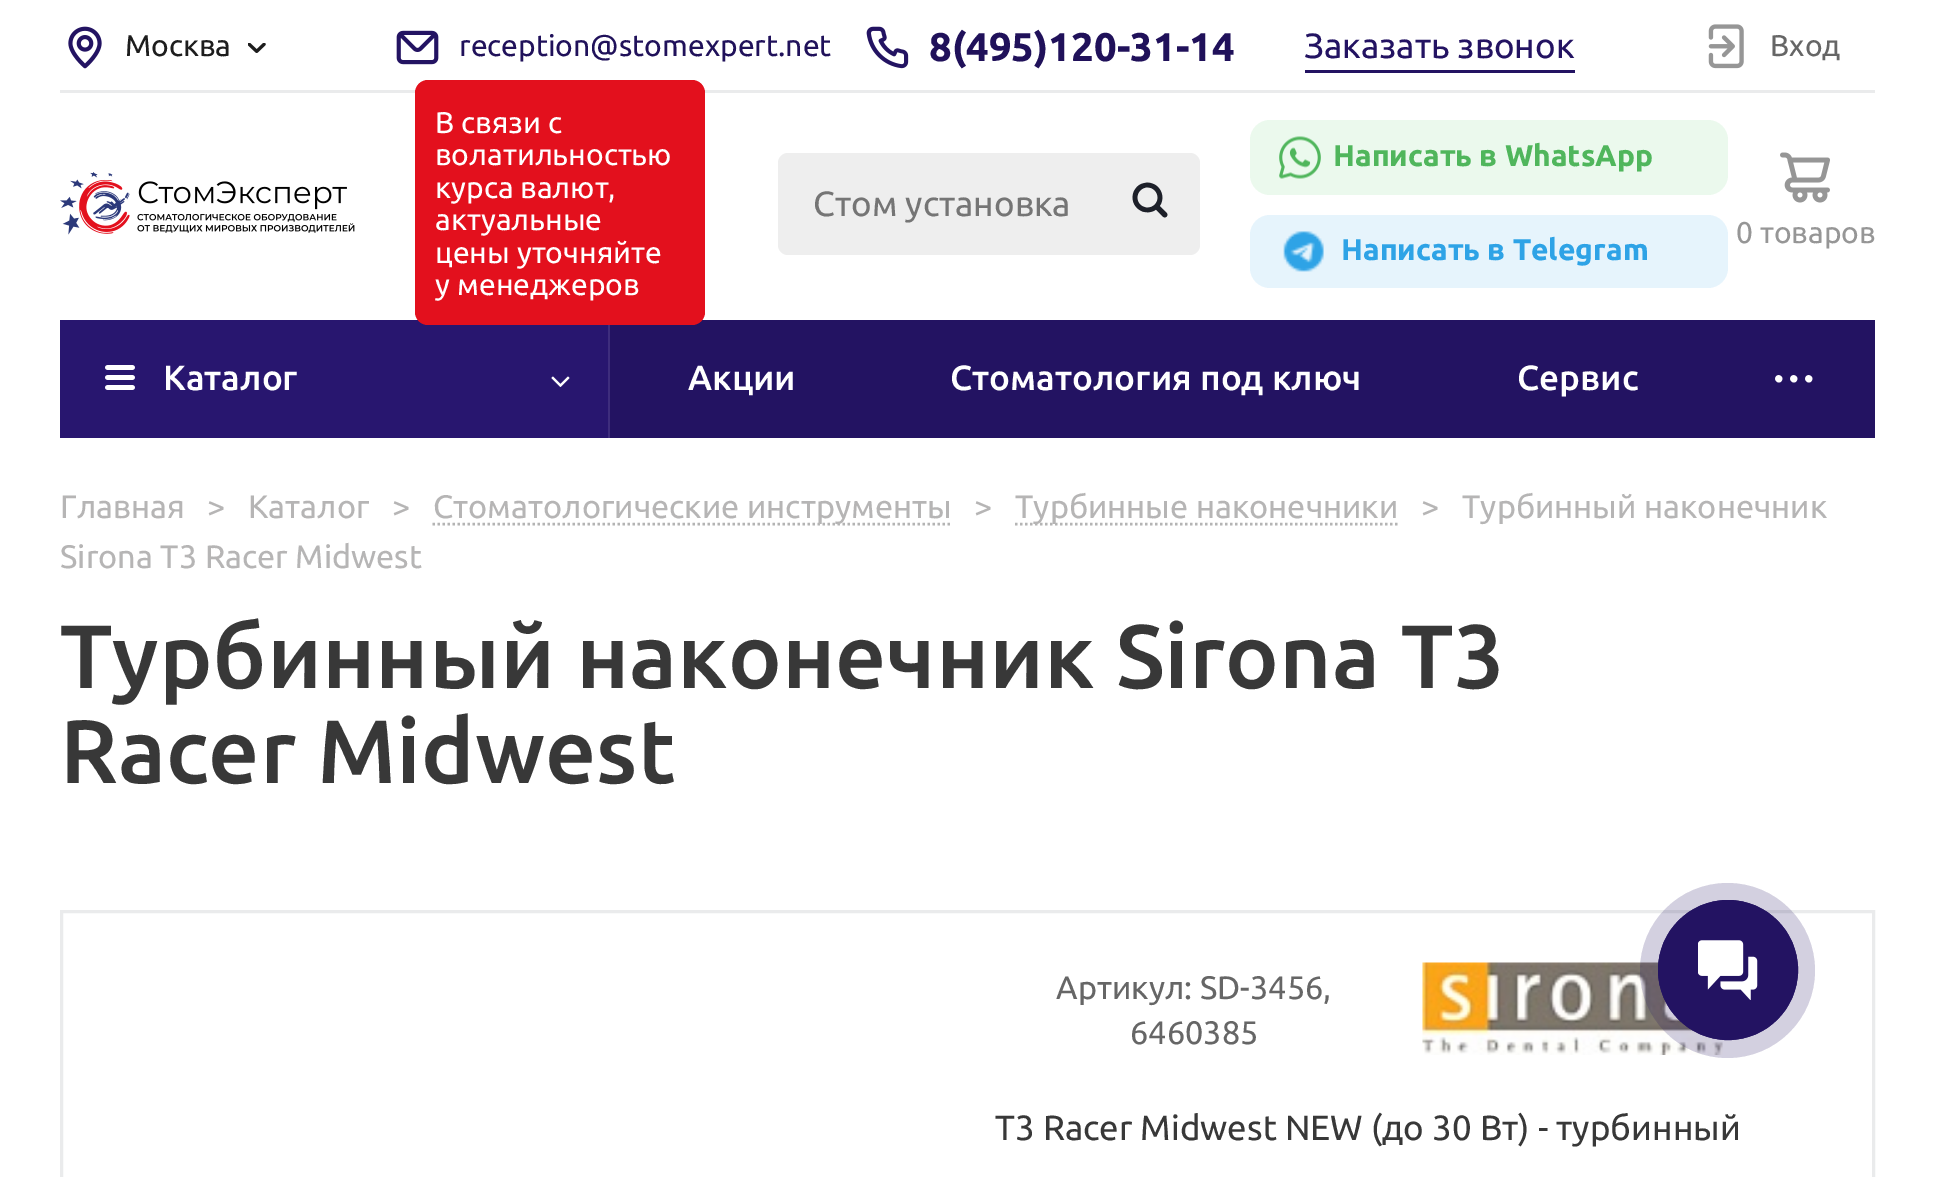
%!PS-Adobe-3.0
%%BoundingBox: 0 0 1934 1177
%%LanguageLevel: 3
%%Pages: 1
%%EndComments
%%BeginProlog
/setink { dup -16 bitshift 255 div exch dup -8 bitshift 255 and 255 div exch 255 and 255 div setrgbcolor } def
/usefont { [ exch dup neg 0 0 3 -1 roll 0 0 ] selectfont } def
/setalpha { dup .setfillconstantalpha .setstrokeconstantalpha } def
/disc { newpath 0 360 arc closepath } def
/rrect { 5 dict begin { /r /h /w /y /x } { exch def } forall
  x r add y moveto x w add y 2 copy h add r arct x w add y h add x 1 index r arct
  x y h add x y r arct x y 2 copy exch w add exch r arct closepath end } def
/drawimage { 5 dict begin { /h /w /y /x /name } { exch def } forall
  gsave x y translate w h scale
  w h 8 [w 0 0 h 0 0] name (r) file false 3 colorimage grestore end } def
%%EndProlog
%%BeginSetup
<< /PageSize [1934 1177] /PageUsesTransparency true >> setpagedevice
%%EndSetup
%%Page: 1 1
0 .pushpdf14devicefilter
0 1177 translate 1 -1 scale
4 setmiterlimit
16#FFFFFF setink
0 0 1934 1177 rectfill
(img1.raw) 68 26 34 43 drawimage
/Ubuntu-Regular 30 usefont
16#1D1D1D setink
125 56 moveto (Москва) show
(img2.raw) 248 43 18 10 drawimage
(img3.raw) 396 30 43 35 drawimage
16#20115A setink
459 56 moveto (reception@stomexpert.net) show
(img4.raw) 866 26 43 43 drawimage
/Ubuntu-Bold 40 usefont
929 61 moveto (8\(495\)120-31-14) show
16#231362 setink
1305 70 270 3 rectfill
/Ubuntu-Regular 35 usefont
1304 58 moveto (Заказать звонок) show
(img5.raw) 1708 24 36 45 drawimage
/Ubuntu-Regular 30 usefont
16#666666 setink
1770 56 moveto (Вход) show
16#EAEBEC setink
60 90 1815 3 rectfill
(img6.raw) 60 172 295 63 drawimage
[
    [610 320 1265 118 16#231362]
    [60 320 548 118 16#28166F]
    [608 320 2 118 16#3E2D7D]
] { aload pop setink rectfill } forall
16#E3101D setink
415 80 290 245 13 rrect fill
16#FFFFFF setink
[
    [(В связи с) 435 133]
    [(волатильностью) 435 165]
    [(курса валют,) 435 198]
    [(актуальные) 435 230]
    [(цены уточняйте) 435 263]
    [(у менеджеров) 435 295]
] { aload pop moveto show } forall
16#EEEEEE setink
778 153 422 102 10 rrect fill
/Ubuntu-Regular 35 usefont
16#757575 setink
813 216 moveto (Стом установка) show
(img7.raw) 1132 182 36 36 drawimage
16#EBF9ED setink
1250 120 478 75 20 rrect fill
(img8.raw) 1279 136 42 43 drawimage
/Ubuntu-Bold 30 usefont
16#50B65C setink
1333 166 moveto (Написать в WhatsApp) show
16#E6F4FC setink
1250 215 478 73 20 rrect fill
(img9.raw) 1283 231 41 41 drawimage
16#2EA3E6 setink
1341 260 moveto (Написать в Telegram) show
(img10.raw) 1780 152 50 51 drawimage
/Ubuntu-Regular 30 usefont
16#969696 setink
1736 243 moveto (0 товаров) show
(img11.raw) 105 365 30 25 drawimage
/Ubuntu-Medium 35 usefont
16#FFFFFF setink
163 390 moveto (Каталог) show
(img12.raw) 551 376 19 11 drawimage
[
    [(Акции) 688 390]
    [(Стоматология под ключ) 950 390]
    [(Сервис) 1517 390]
] { aload pop moveto show } forall
(img13.raw) 1775 375 38 8 drawimage
/Ubuntu-Regular 32.5 usefont
16#B6B5B5 setink
[
    [(Главная) 60 518]
    [(>) 207 518]
    [(Каталог) 248 518]
    [(>) 392 518]
] { aload pop moveto show } forall
16#B4B4B4 setink
2.5 setlinewidth
[2.5 2.5] 0 setdash
432.5 524 moveto 952.5 524 lineto stroke
16#B6B5B5 setink
433 518 moveto (Стоматологические инструменты) show
974 518 moveto (>) show
16#B4B4B4 setink
1015 524 moveto 1397.5 524 lineto stroke
16#B6B5B5 setink
[
    [(Турбинные наконечники) 1015 518]
    [(>) 1421 518]
    [(Турбинный наконечник) 1462 518]
    [(Sirona T3 Racer Midwest) 60 568]
] { aload pop moveto show } forall
/Ubuntu-Medium 90 usefont
16#383838 setink
60 688 moveto (Турбинный наконечник Sirona T3) show
60 783 moveto (Racer Midwest) show
16#EAEBEC setink
3 setlinewidth
[] 0 setdash
61.5 911.5 1812 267 rectstroke
/Ubuntu-Regular 32.5 usefont
16#666666 setink
1056 999 moveto (Артикул: SD-3456,) show
1130 1044 moveto (6460385) show
(img14.raw) 1422 962 301 93 drawimage
/Ubuntu-Regular 35 usefont
16#383838 setink
995 1140 moveto (T3 Racer Midwest NEW \(до 30 Вт\) - турбинный) show
0.2 setalpha
16#231362 setink
1727.5 970.5 87.5 disc fill
1 setalpha
2 setlinewidth
1728 970 69 disc stroke
1728 970 70 disc fill
(img15.raw) 1698 940 60 60 drawimage
.poppdf14devicefilter showpage
%%EOF
